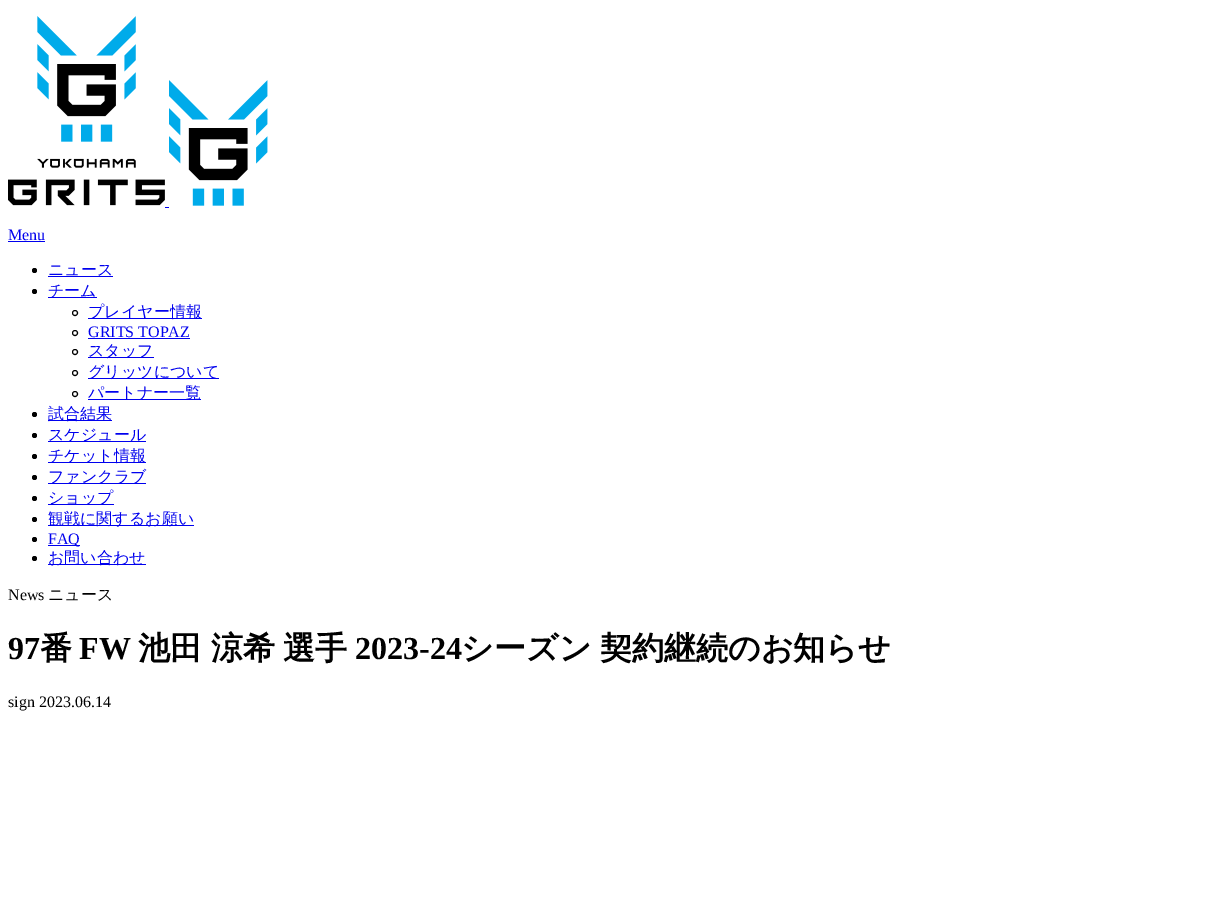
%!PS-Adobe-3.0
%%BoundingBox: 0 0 1220 924
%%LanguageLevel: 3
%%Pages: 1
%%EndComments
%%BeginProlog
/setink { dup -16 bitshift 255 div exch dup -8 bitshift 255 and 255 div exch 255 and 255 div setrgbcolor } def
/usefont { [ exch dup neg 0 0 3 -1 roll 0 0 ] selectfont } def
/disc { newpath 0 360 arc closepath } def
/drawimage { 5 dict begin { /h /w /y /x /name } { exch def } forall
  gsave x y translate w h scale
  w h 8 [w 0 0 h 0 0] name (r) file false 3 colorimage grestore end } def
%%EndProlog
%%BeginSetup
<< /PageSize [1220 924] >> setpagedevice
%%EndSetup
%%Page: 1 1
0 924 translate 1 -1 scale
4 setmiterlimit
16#FFFFFF setink
0 0 1220 924 rectfill
(img1.raw) 8 16 157 190 drawimage
(img2.raw) 169 80 99 126 drawimage
16#0000EE setink
165 207 4 1 rectfill
/LiberationSerif-Regular 16 usefont
8 240 moveto (Menu) show
8 241 37 1 rectfill
16#000000 setink
34.5 270.5 2.5 disc fill
/WenQuanYiZenHei-Medium 16 usefont
16#0000EE setink
48 275 moveto (ニュース) show
48 276 65 1 rectfill
16#000000 setink
34.5 291.5 2.5 disc fill
16#0000EE setink
48 297 49 1 rectfill
48 296 moveto (チーム) show
16#000000 setink
75 313 2.5 disc stroke
16#0000EE setink
88 318 114 1 rectfill
88 317 moveto (プレイヤー情報) show
16#000000 setink
75 333 2.5 disc stroke
/LiberationSerif-Regular 16 usefont
16#0000EE setink
88 337 moveto (GRITS TOPAZ) show
88 338 102 1 rectfill
16#000000 setink
75 352 2.5 disc stroke
16#0000EE setink
88 357 66 1 rectfill
/WenQuanYiZenHei-Medium 16 usefont
88 356 moveto (スタッフ) show
16#000000 setink
75 373 2.5 disc stroke
16#0000EE setink
88 378 131 1 rectfill
88 377 moveto (グリッツについて) show
16#000000 setink
75 394 2.5 disc stroke
16#0000EE setink
88 399 113 1 rectfill
88 398 moveto (パートナー一覧) show
16#000000 setink
34.5 414.5 2.5 disc fill
16#0000EE setink
48 420 64 1 rectfill
48 419 moveto (試合結果) show
16#000000 setink
34.5 435.5 2.5 disc fill
16#0000EE setink
48 441 98 1 rectfill
48 440 moveto (スケジュール) show
16#000000 setink
34.5 456.5 2.5 disc fill
16#0000EE setink
48 462 98 1 rectfill
48 461 moveto (チケット情報) show
16#000000 setink
34.5 477.5 2.5 disc fill
16#0000EE setink
48 483 98 1 rectfill
48 482 moveto (ファンクラブ) show
16#000000 setink
34.5 498.5 2.5 disc fill
16#0000EE setink
48 504 66 1 rectfill
48 503 moveto (ショップ) show
16#000000 setink
34.5 519.5 2.5 disc fill
16#0000EE setink
48 525 146 1 rectfill
48 524 moveto (観戦に関するお願い) show
16#000000 setink
34.5 539.5 2.5 disc fill
16#0000EE setink
48 545 32 1 rectfill
/LiberationSerif-Regular 16 usefont
48 544 moveto (FAQ) show
16#000000 setink
34.5 558.5 2.5 disc fill
16#0000EE setink
48 564 98 1 rectfill
/WenQuanYiZenHei-Medium 16 usefont
48 563 moveto (お問い合わせ) show
/LiberationSerif-Regular 16 usefont
16#000000 setink
8 600 moveto (News) show
/WenQuanYiZenHei-Medium 16 usefont
48 600 moveto (ニュース) show
/LiberationSerif-Bold 32 usefont
8 659 moveto (97) show
/WenQuanYiZenHei-Bold 32 usefont
40 659 moveto (番) show
/LiberationSerif-Bold 32 usefont
79 659 moveto (FW) show
/WenQuanYiZenHei-Bold 32 usefont
138 659 moveto -1 0 32 (池田 涼希 選手) widthshow
/LiberationSerif-Bold 32 usefont
355 659 moveto (2023-24) show
/WenQuanYiZenHei-Bold 32 usefont
461 659 moveto -1 0 32 (シーズン 契約継続のお知らせ) widthshow
/LiberationSerif-Regular 16 usefont
8 707 moveto (sign 2023.06.14) show
showpage
%%EOF
